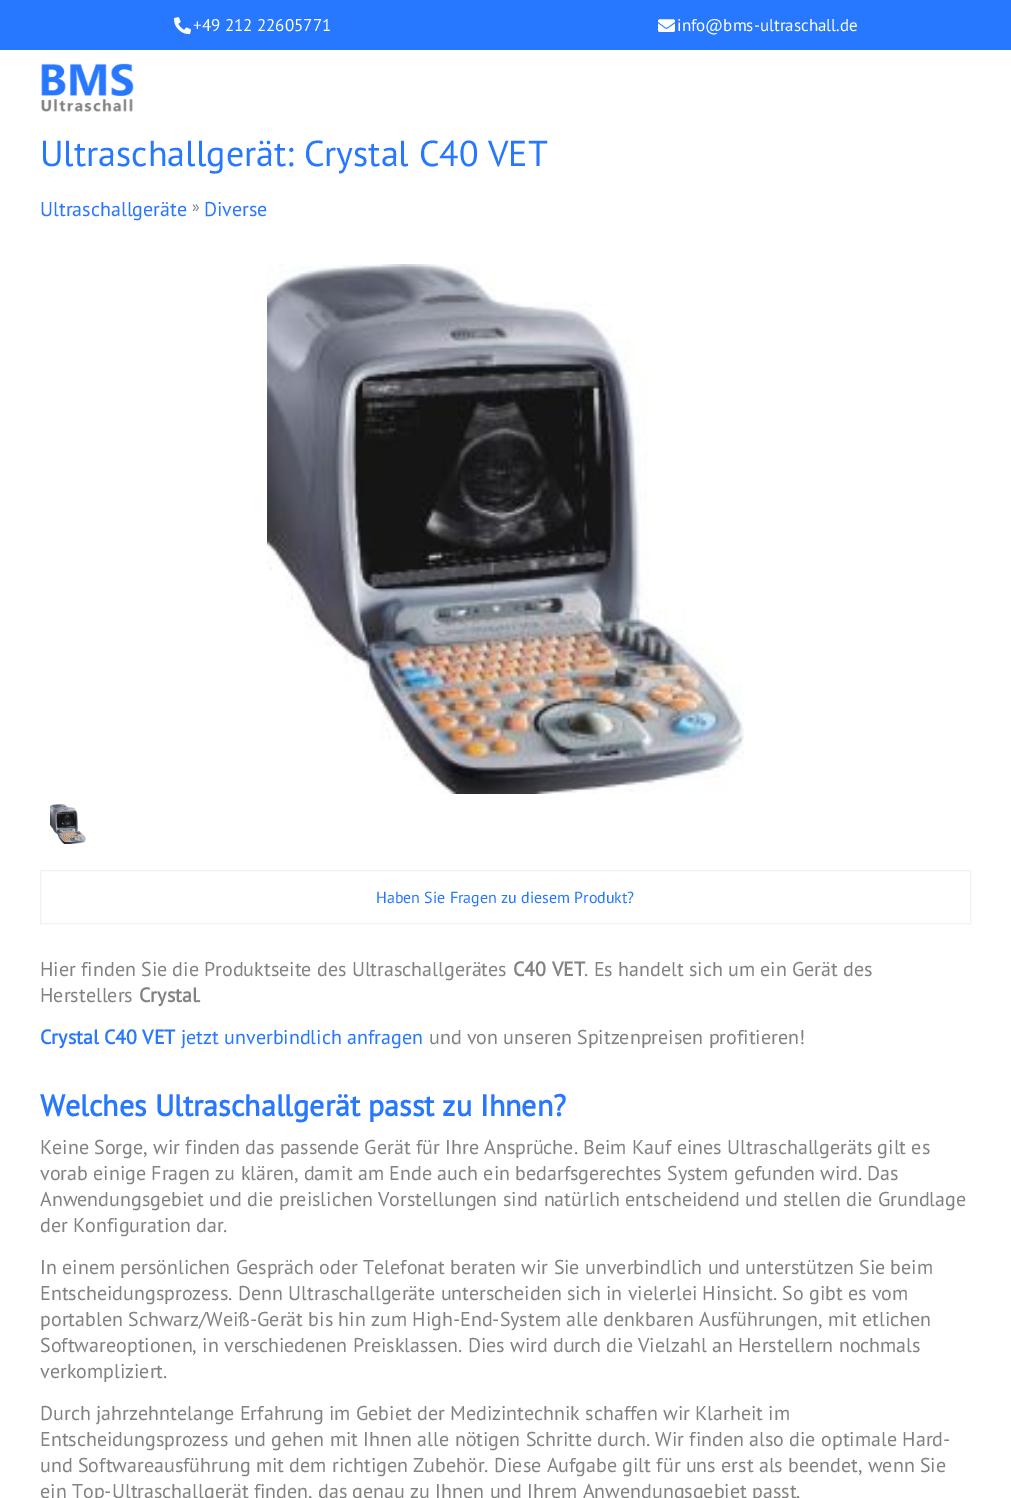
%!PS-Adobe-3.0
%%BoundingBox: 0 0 1011 1498
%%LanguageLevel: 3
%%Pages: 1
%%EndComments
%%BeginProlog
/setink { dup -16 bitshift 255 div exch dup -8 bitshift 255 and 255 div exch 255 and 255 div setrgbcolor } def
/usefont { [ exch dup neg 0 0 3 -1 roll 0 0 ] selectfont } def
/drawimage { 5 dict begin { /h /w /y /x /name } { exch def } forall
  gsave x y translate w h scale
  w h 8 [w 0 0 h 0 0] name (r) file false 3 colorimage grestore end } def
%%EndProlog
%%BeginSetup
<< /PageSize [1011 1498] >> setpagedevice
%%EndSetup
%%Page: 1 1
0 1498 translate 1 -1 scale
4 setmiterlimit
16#FFFFFF setink
0 0 1011 1498 rectfill
16#2778FF setink
0 0 1011 50 rectfill
(img1.raw) 174 17 17 18 drawimage
/PTSans-Regular 17 usefont
16#FFFFFF setink
193 31 moveto (+49 212 22605771) show
(img2.raw) 658 19 17 13 drawimage
677 31 moveto (info@bms-ultraschall.de) show
(img3.raw) 41 63 93 49 drawimage
/PTSans-Regular 36 usefont
16#2778FF setink
40 166 moveto (Ultraschallgerät: Crystal C40 VET) show
/PTSans-Regular 20 usefont
40 216 moveto (Ultraschallgeräte) show
/PTSans-Regular 16 usefont
16#838280 setink
192 212 moveto (») show
/PTSans-Regular 20 usefont
16#2778FF setink
204 216 moveto (Diverse) show
(img4.raw) 267 264 477 530 drawimage
(img5.raw) 50 804 36 40 drawimage
16#F1F1F1 setink
40.5 870.5 930 53 rectstroke
/PTSans-Regular 16 usefont
16#2778FF setink
376 903 moveto (Haben Sie Fragen zu diesem Produkt?) show
/PTSans-Regular 20 usefont
16#838280 setink
40 976 moveto (Hier finden Sie die Produktseite des Ultraschallgerätes) show
/PTSans-Bold 20 usefont
513 976 moveto (C40 VET) show
/PTSans-Regular 20 usefont
584 976 moveto (. Es handelt sich um ein Gerät des) show
40 1002 moveto (Herstellers) show
/PTSans-Bold 20 usefont
139 1002 moveto (Crystal) show
/PTSans-Regular 20 usefont
197 1002 moveto (.) show
/PTSans-Bold 20 usefont
16#2778FF setink
40 1044 moveto (Crystal C40 VET) show
/PTSans-Regular 20 usefont
181 1044 moveto (jetzt unverbindlich anfragen) show
16#838280 setink
429 1044 moveto (und von unseren Spitzenpreisen profitieren!) show
/PTSans-Bold 30 usefont
16#2778FF setink
40 1116 moveto (Welches Ultraschallgerät passt zu Ihnen?) show
/PTSans-Regular 20 usefont
16#838280 setink
[
    [(Keine Sorge, wir finden das passende Gerät für Ihre Ansprüche. Beim Kauf eines Ultraschallgeräts gilt es) 40 1154]
    [(vorab einige Fragen zu klären, damit am Ende auch ein bedarfsgerechtes System gefunden wird. Das) 40 1180]
    [(Anwendungsgebiet und die preislichen Vorstellungen sind natürlich entscheidend und stellen die Grundlage) 40 1206]
    [(der Konfiguration dar.) 40 1232]
    [(In einem persönlichen Gespräch oder Telefonat beraten wir Sie unverbindlich und unterstützen Sie beim) 40 1274]
    [(Entscheidungsprozess. Denn Ultraschallgeräte unterscheiden sich in vielerlei Hinsicht. So gibt es vom) 40 1300]
    [(portablen Schwarz/Weiß-Gerät bis hin zum High-End-System alle denkbaren Ausführungen, mit etlichen) 40 1326]
    [(Softwareoptionen, in verschiedenen Preisklassen. Dies wird durch die Vielzahl an Herstellern nochmals) 40 1352]
    [(verkompliziert.) 40 1378]
    [(Durch jahrzehntelange Erfahrung im Gebiet der Medizintechnik schaffen wir Klarheit im) 40 1420]
    [(Entscheidungsprozess und gehen mit Ihnen alle nötigen Schritte durch. Wir finden also die optimale Hard-) 40 1446]
    [(und Softwareausführung mit dem richtigen Zubehör. Diese Aufgabe gilt für uns erst als beendet, wenn Sie) 40 1472]
    [(ein Top-Ultraschallgerät finden, das genau zu Ihnen und Ihrem Anwendungsgebiet passt.) 40 1498]
] { aload pop moveto show } forall
showpage
%%EOF
